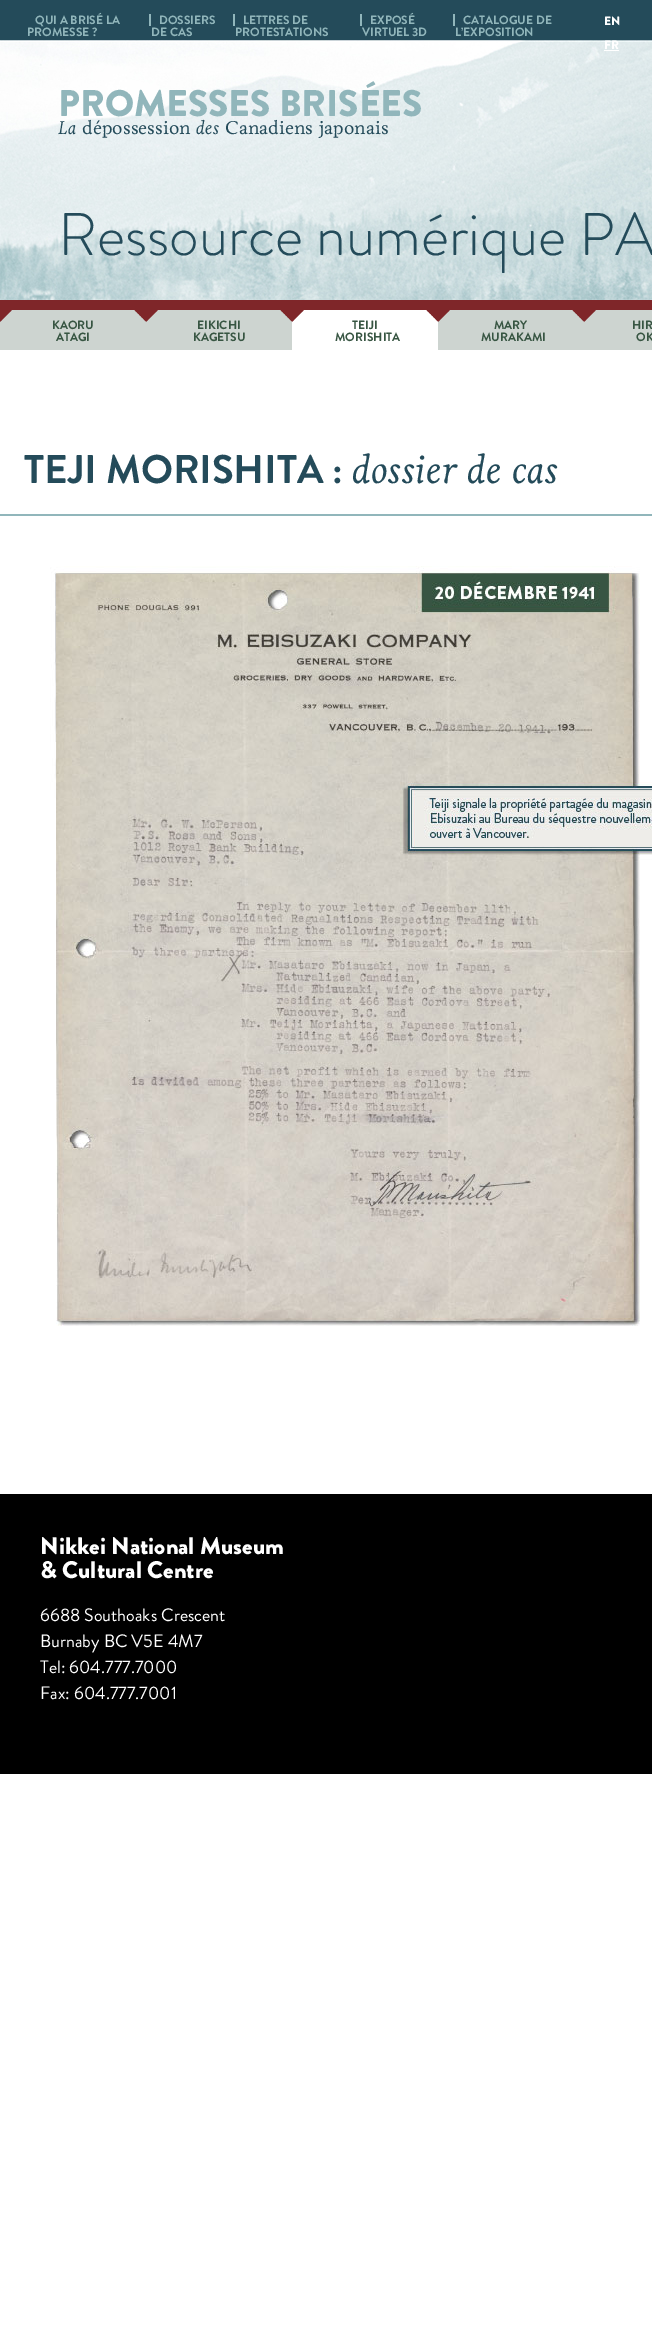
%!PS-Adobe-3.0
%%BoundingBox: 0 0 652 2330
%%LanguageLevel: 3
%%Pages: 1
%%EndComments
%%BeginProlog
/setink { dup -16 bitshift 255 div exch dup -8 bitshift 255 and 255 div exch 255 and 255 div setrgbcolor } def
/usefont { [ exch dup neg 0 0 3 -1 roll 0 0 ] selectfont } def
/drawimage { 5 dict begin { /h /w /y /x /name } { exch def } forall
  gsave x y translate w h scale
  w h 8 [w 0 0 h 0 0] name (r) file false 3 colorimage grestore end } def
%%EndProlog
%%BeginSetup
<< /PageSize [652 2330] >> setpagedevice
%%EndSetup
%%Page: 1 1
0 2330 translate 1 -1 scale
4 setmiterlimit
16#FFFFFF setink
0 0 652 2330 rectfill
16#244B5A setink
0 0 652 40 rectfill
16#91B6BB setink
149 14 2 12 rectfill
/BrandonGrotesque-Bold 12 usefont
35 24 moveto (QUI A BRISÉ LA) show
27 36 moveto (PROMESSE ?) show
233 14 2 12 rectfill
159 24 moveto (DOSSIERS) show
151 36 moveto (DE CAS) show
360 14 2 12 rectfill
243 24 moveto (LETTRES DE) show
235 36 moveto (PROTESTATIONS) show
453 14 2 12 rectfill
[
    [(EXPOSÉ) 370 24]
    [(VIRTUEL 3D) 362 36]
    [(CATALOGUE DE) 463 24]
    [(L’EXPOSITION) 455 36]
] { aload pop moveto show } forall
/BrandonGrotesque-Black 12 usefont
16#FFFFFF setink
604 25 moveto (EN) show
(img1.raw) 0 40 652 260 drawimage
604 49 moveto (FR) show
604 50 15 1 rectfill
/BrandonGrotesque-Black 37 usefont
16#91B6BB setink
58 116 moveto (PROMESSES BRISÉES) show
/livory-Italic 19 usefont
16#244B5A setink
58 134 moveto (La) show
/livory-Regular 19 usefont
82 134 moveto (dépossession) show
/livory-Italic 19 usefont
196 134 moveto (des) show
/livory-Regular 19 usefont
225 134 moveto (Canadiens japonais) show
/BrandonGrotesque-Light 60 usefont
58 255 moveto (Ressource numérique PA) show
16#7F2629 setink
0 300 652 10 rectfill
16#CDD4D0 setink
0 310 292 40 rectfill
(img2.raw) 0 310 146 12 drawimage
/BrandonGrotesque-Bold 12 usefont
16#375542 setink
52 329 moveto (KAORU) show
56 341 moveto (ATAGI) show
(img2.raw) 146 310 146 12 drawimage
197 329 moveto (EIKICHI) show
193 341 moveto (KAGETSU) show
(img3.raw) 292 310 146 12 drawimage
352 329 moveto (TEIJI) show
335 341 moveto (MORISHITA) show
16#CDD4D0 setink
438 310 214 40 rectfill
(img2.raw) 438 310 146 12 drawimage
16#375542 setink
494 329 moveto (MARY) show
481 341 moveto (MURAKAMI) show
(img4.raw) 584 310 12 12 drawimage
632 329 moveto (HIR) show
636 341 moveto (OK) show
16#91B6BB setink
0 514 652 2 rectfill
/BrandonGrotesque-Bold 40 usefont
16#244B5A setink
24 483 moveto (TEJI MORISHITA :) show
/livory-Italic 40 usefont
352 483 moveto (dossier de cas) show
(img5.raw) 50 566 602 760 drawimage
16#000000 setink
0 1494 652 280 rectfill
/BrandonGrotesque-Black 24 usefont
16#FFFFFF setink
40 1554 moveto (Nikkei National Museum) show
40 1578 moveto (& Cultural Centre) show
/BrandonGrotesque-Regular 18 usefont
[
    [(6688 Southoaks Crescent) 40 1621]
    [(Burnaby BC V5E 4M7) 40 1647]
    [(Tel: 604.777.7000) 40 1673]
    [(Fax: 604.777.7001) 40 1699]
] { aload pop moveto show } forall
showpage
%%EOF
